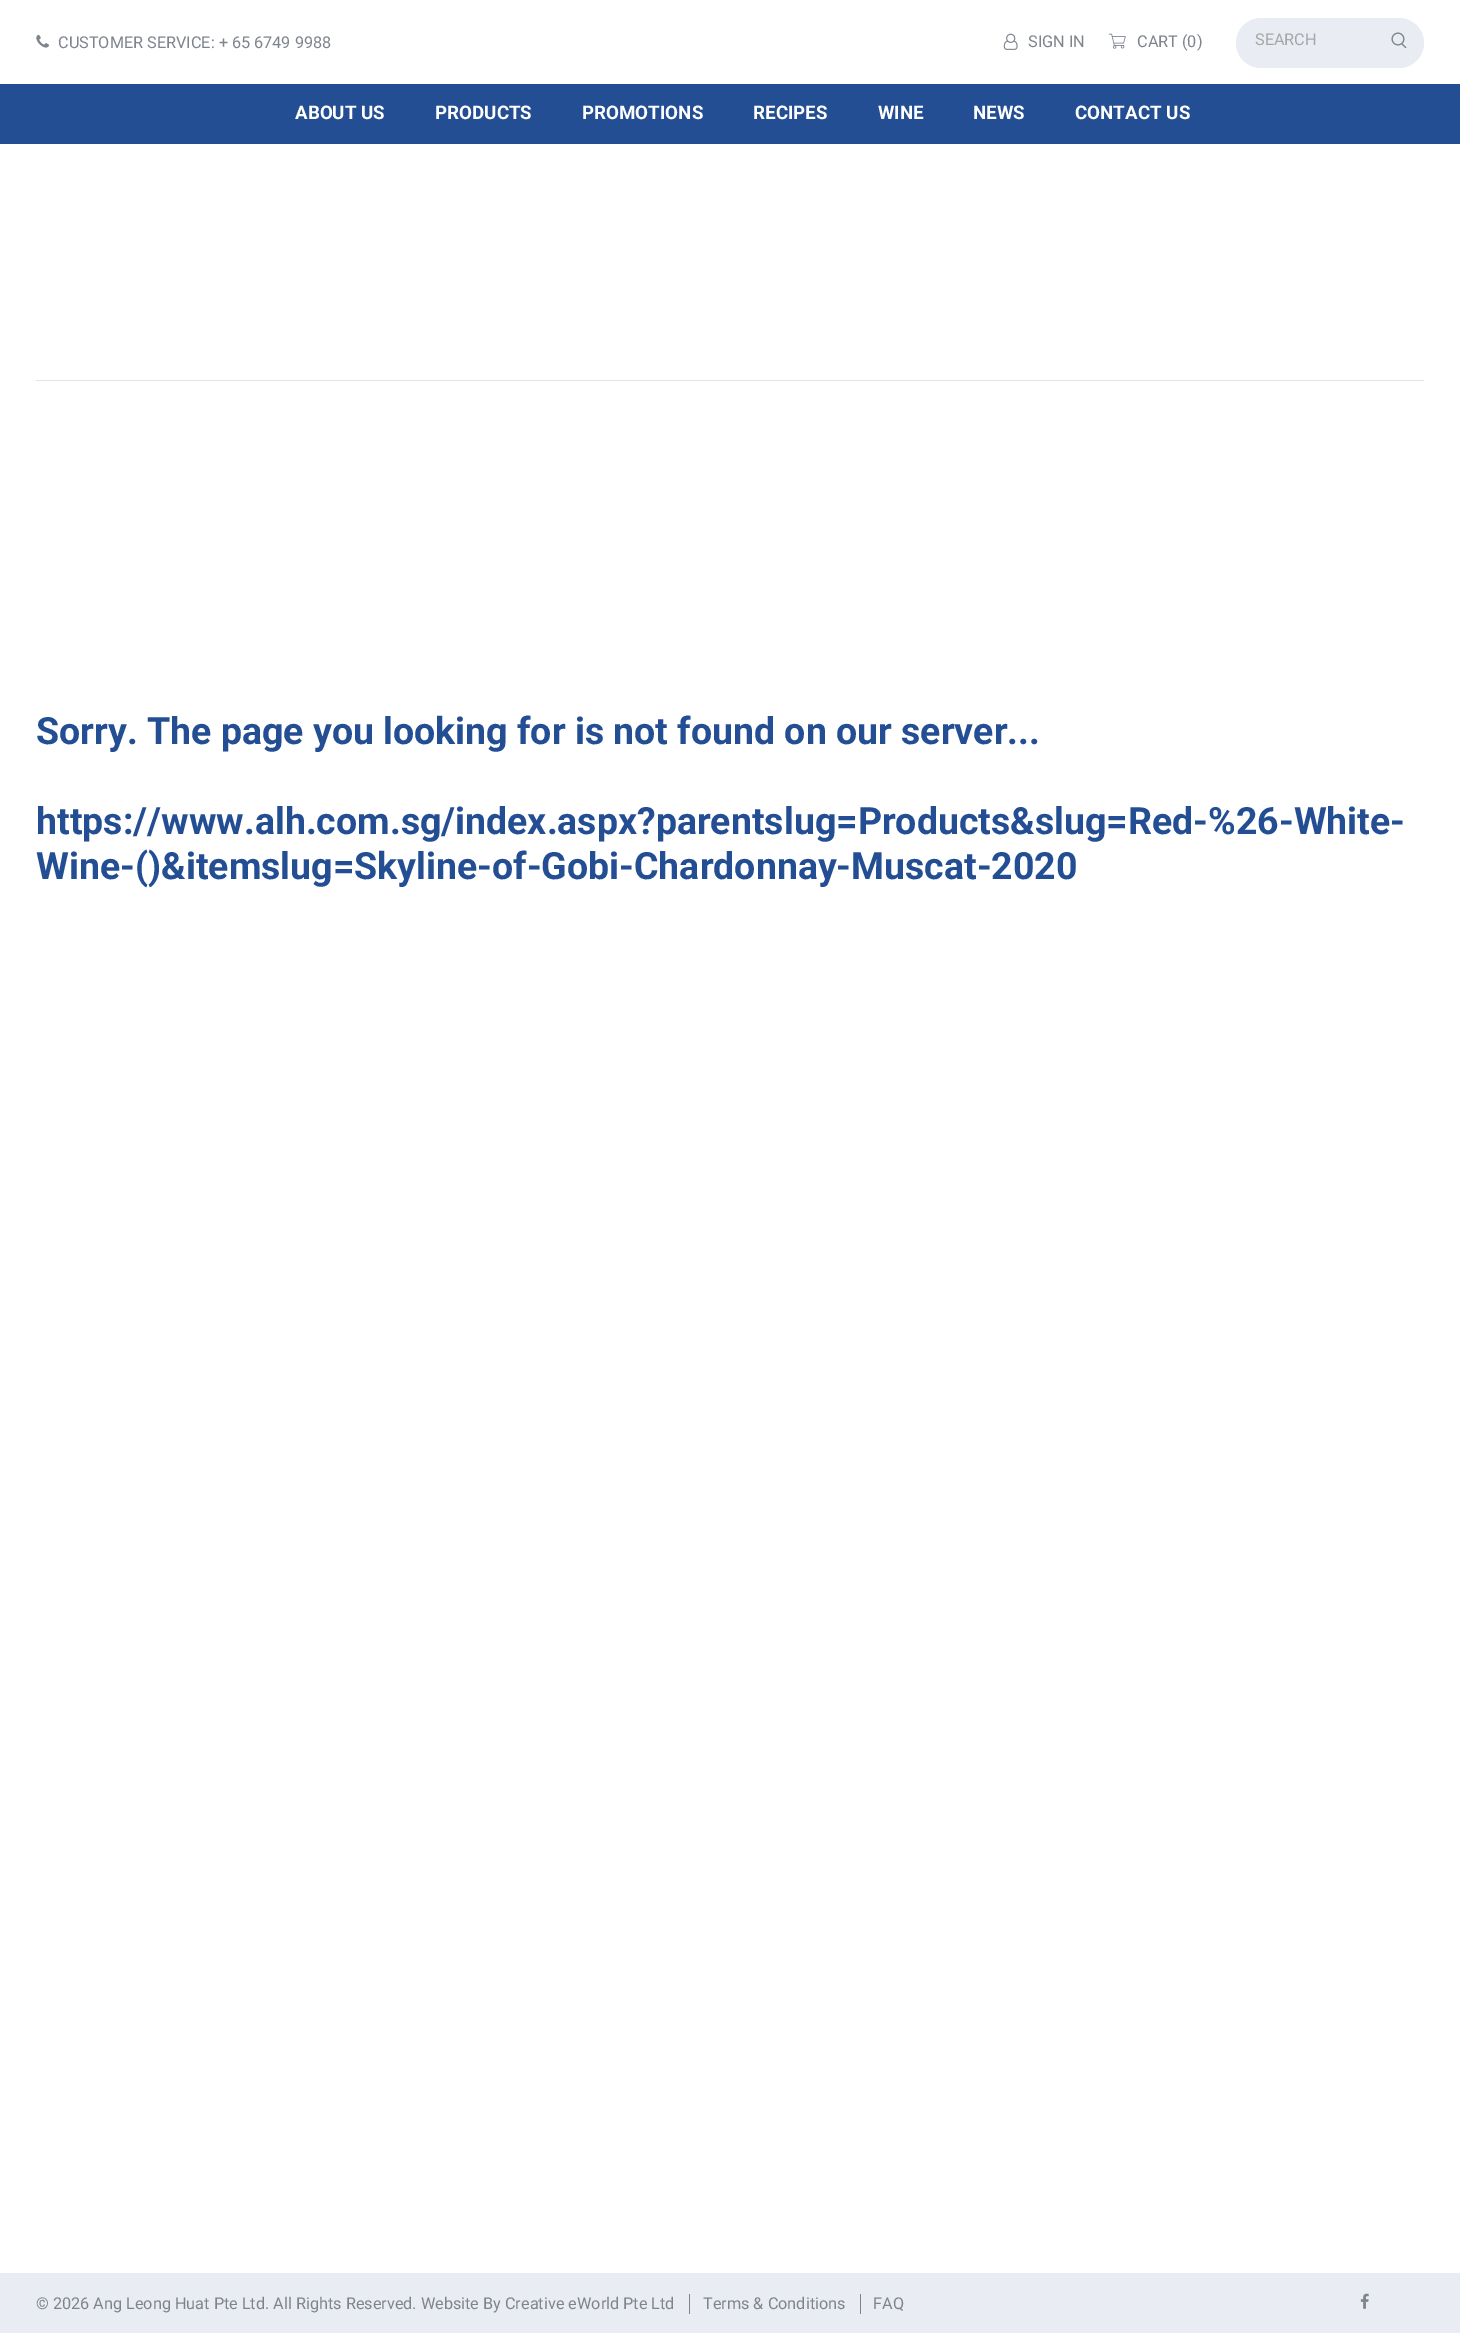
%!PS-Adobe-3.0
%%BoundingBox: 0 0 1460 2333
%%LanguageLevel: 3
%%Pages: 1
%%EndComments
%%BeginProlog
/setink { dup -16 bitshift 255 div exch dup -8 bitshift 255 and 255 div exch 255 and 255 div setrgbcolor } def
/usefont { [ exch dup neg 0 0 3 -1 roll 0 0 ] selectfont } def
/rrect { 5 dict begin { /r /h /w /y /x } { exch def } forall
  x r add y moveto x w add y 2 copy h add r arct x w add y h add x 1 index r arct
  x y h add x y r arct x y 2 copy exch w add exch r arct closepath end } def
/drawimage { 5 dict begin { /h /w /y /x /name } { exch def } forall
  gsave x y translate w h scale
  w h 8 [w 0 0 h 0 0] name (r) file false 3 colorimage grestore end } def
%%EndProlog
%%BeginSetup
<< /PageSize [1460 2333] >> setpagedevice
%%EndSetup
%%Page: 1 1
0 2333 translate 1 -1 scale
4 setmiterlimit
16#FFFFFF setink
0 0 1460 2333 rectfill
(img1.raw) 36 34 13 14 drawimage
/Roboto-Regular 16.25 usefont
16#7E848E setink
58 48 moveto (CUSTOMER SERVICE: + 65 6749 9988) show
(img2.raw) 1003 33 15 17 drawimage
1028 47 moveto (SIGN IN) show
(img3.raw) 1108 33 18 16 drawimage
1137 47 moveto (CART \(0\)) show
16#E9EDF3 setink
1236 18 188 50 25 rrect fill
16#A6A6A6 setink
1255 45 moveto (SEARCH) show
(img4.raw) 1391 32 16 17 drawimage
16#244E93 setink
0 84 1460 60 rectfill
/Roboto-Bold 18.75 usefont
16#FFFFFF setink
[
    [(ABOUT US) 295 119]
    [(PRODUCTS) 435 119]
    [(PROMOTIONS) 582 119]
    [(RECIPES) 753 119]
    [(WINE) 878 119]
    [(NEWS) 973 119]
    [(CONTACT US) 1075 119]
] { aload pop moveto show } forall
16#E4E4E4 setink
36 380 1388 1 rectfill
/Roboto-Bold 37.5 usefont
16#244E93 setink
[
    [(Sorry. The page you looking for is not found on our server...) 36 744]
    [(https://www.alh.com.sg/index.aspx?parentslug=Products&slug=Red-%26-White-) 36 834]
    [(Wine-\(\)&itemslug=Skyline-of-Gobi-Chardonnay-Muscat-2020) 36 879]
] { aload pop moveto show } forall
16#E9EDF3 setink
0 2273 1460 60 rectfill
/Roboto-Regular 16.25 usefont
16#7E848E setink
36 2309 moveto (© 2026 Ang Leong Huat Pte Ltd. All Rights Reserved. Website By Creative eWorld Pte Ltd) show
689 2294 1 20 rectfill
703 2309 moveto (Terms & Conditions) show
860 2294 1 20 rectfill
873 2309 moveto (FAQ) show
(img5.raw) 1360 2293 9 16 drawimage
showpage
%%EOF
